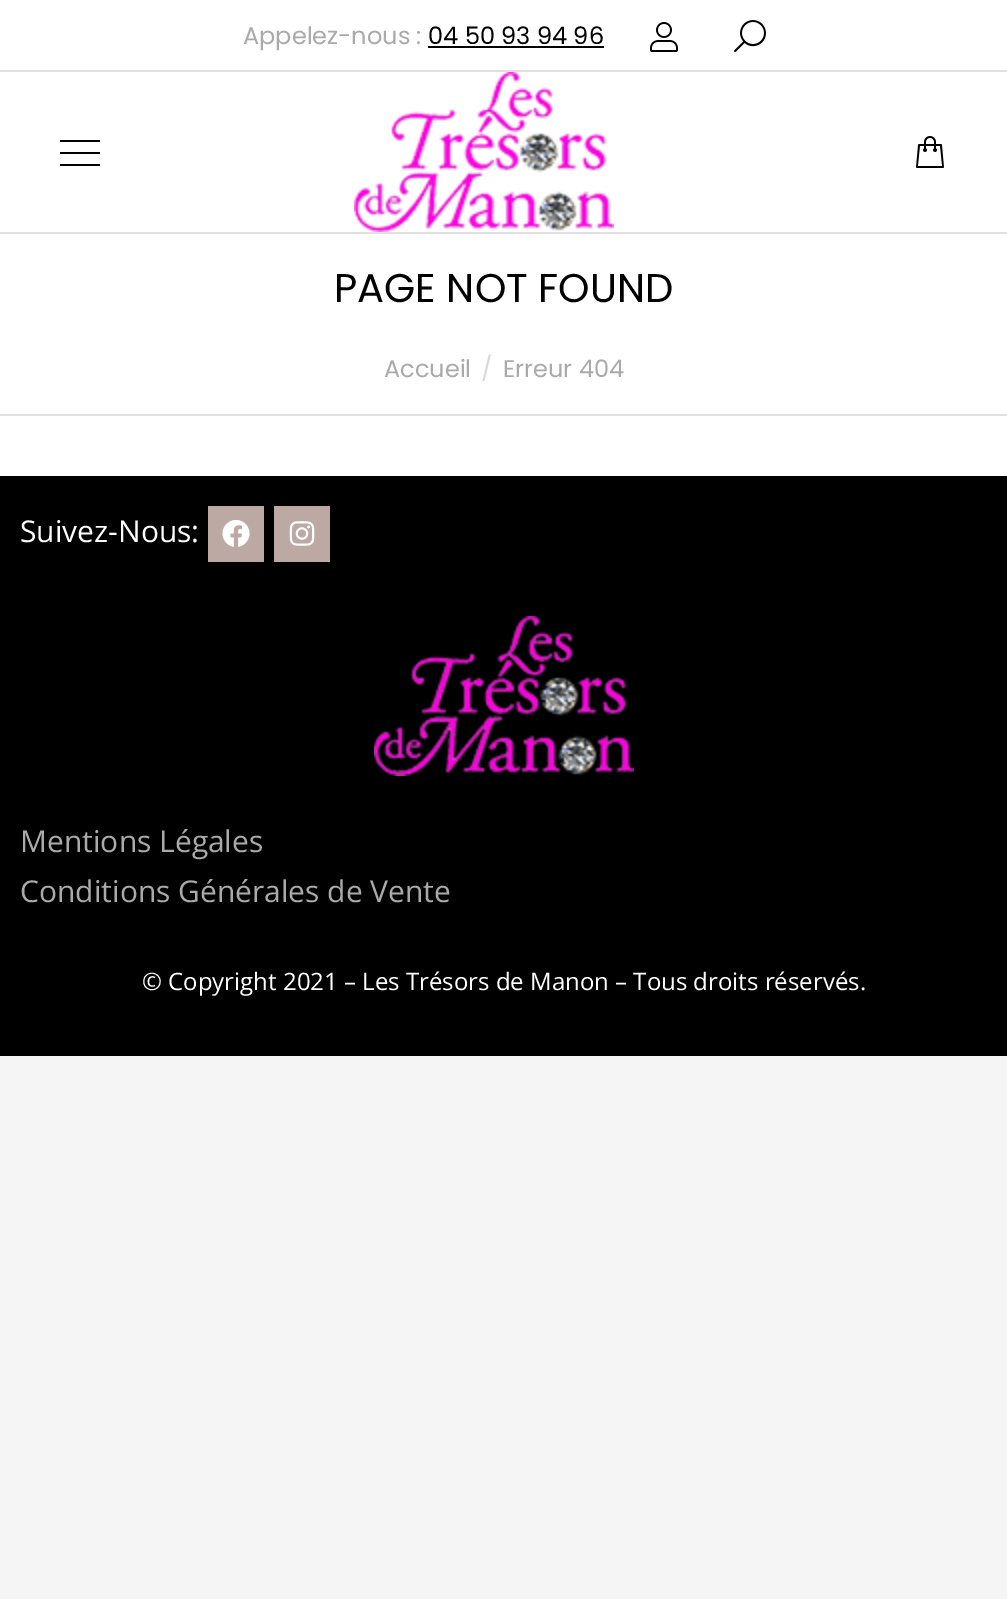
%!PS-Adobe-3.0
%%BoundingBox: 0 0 1007 1599
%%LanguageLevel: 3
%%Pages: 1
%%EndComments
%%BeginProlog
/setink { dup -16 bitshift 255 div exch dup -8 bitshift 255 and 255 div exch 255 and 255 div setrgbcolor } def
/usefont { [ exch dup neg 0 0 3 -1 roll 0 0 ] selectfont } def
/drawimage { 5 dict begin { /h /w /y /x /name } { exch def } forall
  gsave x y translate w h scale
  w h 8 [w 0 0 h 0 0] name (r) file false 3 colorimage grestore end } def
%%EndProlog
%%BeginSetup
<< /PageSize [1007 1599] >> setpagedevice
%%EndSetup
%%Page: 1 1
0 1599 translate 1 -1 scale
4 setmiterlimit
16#F5F5F5 setink
0 0 1007 1599 rectfill
16#FFFFFF setink
0 0 1007 476 rectfill
16#E0E0E0 setink
0 232 1007 2 rectfill
/Poppins-Regular 24 usefont
16#AAAAAA setink
243 44 moveto (Appelez-nous :) show
16#000000 setink
428 44 moveto (04 50 93 94 96) show
428 46 176 2 rectfill
(img1.raw) 650 22 28 30 drawimage
(img2.raw) 734 20 32 32 drawimage
[
    [0 70 1007 2 16#E0E0E0]
    [60 140 40 2 16#000000]
    [60 152 40 2 16#000000]
    [60 164 40 2 16#000000]
] { aload pop setink rectfill } forall
(img3.raw) 354 72 260 160 drawimage
(img4.raw) 916 136 28 32 drawimage
16#E0E0E0 setink
0 414 1007 2 rectfill
/Poppins-Regular 40 usefont
16#000000 setink
334 302 moveto (PAGE NOT FOUND) show
/Poppins-Regular 24 usefont
16#AAAAAA setink
384 377 moveto (Accueil) show
16#D9D9D9 setink
481 377 moveto (/) show
16#AAAAAA setink
503 377 moveto (Erreur 404) show
16#000000 setink
0 476 1007 580 rectfill
/OpenSans-Regular 30 usefont
16#FFFFFF setink
20 542 moveto (Suivez-Nous:) show
16#BCA9A3 setink
208 506 56 56 rectfill
(img5.raw) 222 520 28 27 drawimage
274 506 56 56 rectfill
(img6.raw) 289 521 26 25 drawimage
(img7.raw) 374 616 260 160 drawimage
16#AAAAAA setink
20 852 moveto (Mentions Légales) show
20 902 moveto (Conditions Générales de Vente) show
/OpenSans-Regular 24 usefont
16#FFFFFF setink
142 990 moveto (© Copyright 2021 – Les Trésors de Manon – Tous droits réservés.) show
showpage
%%EOF
